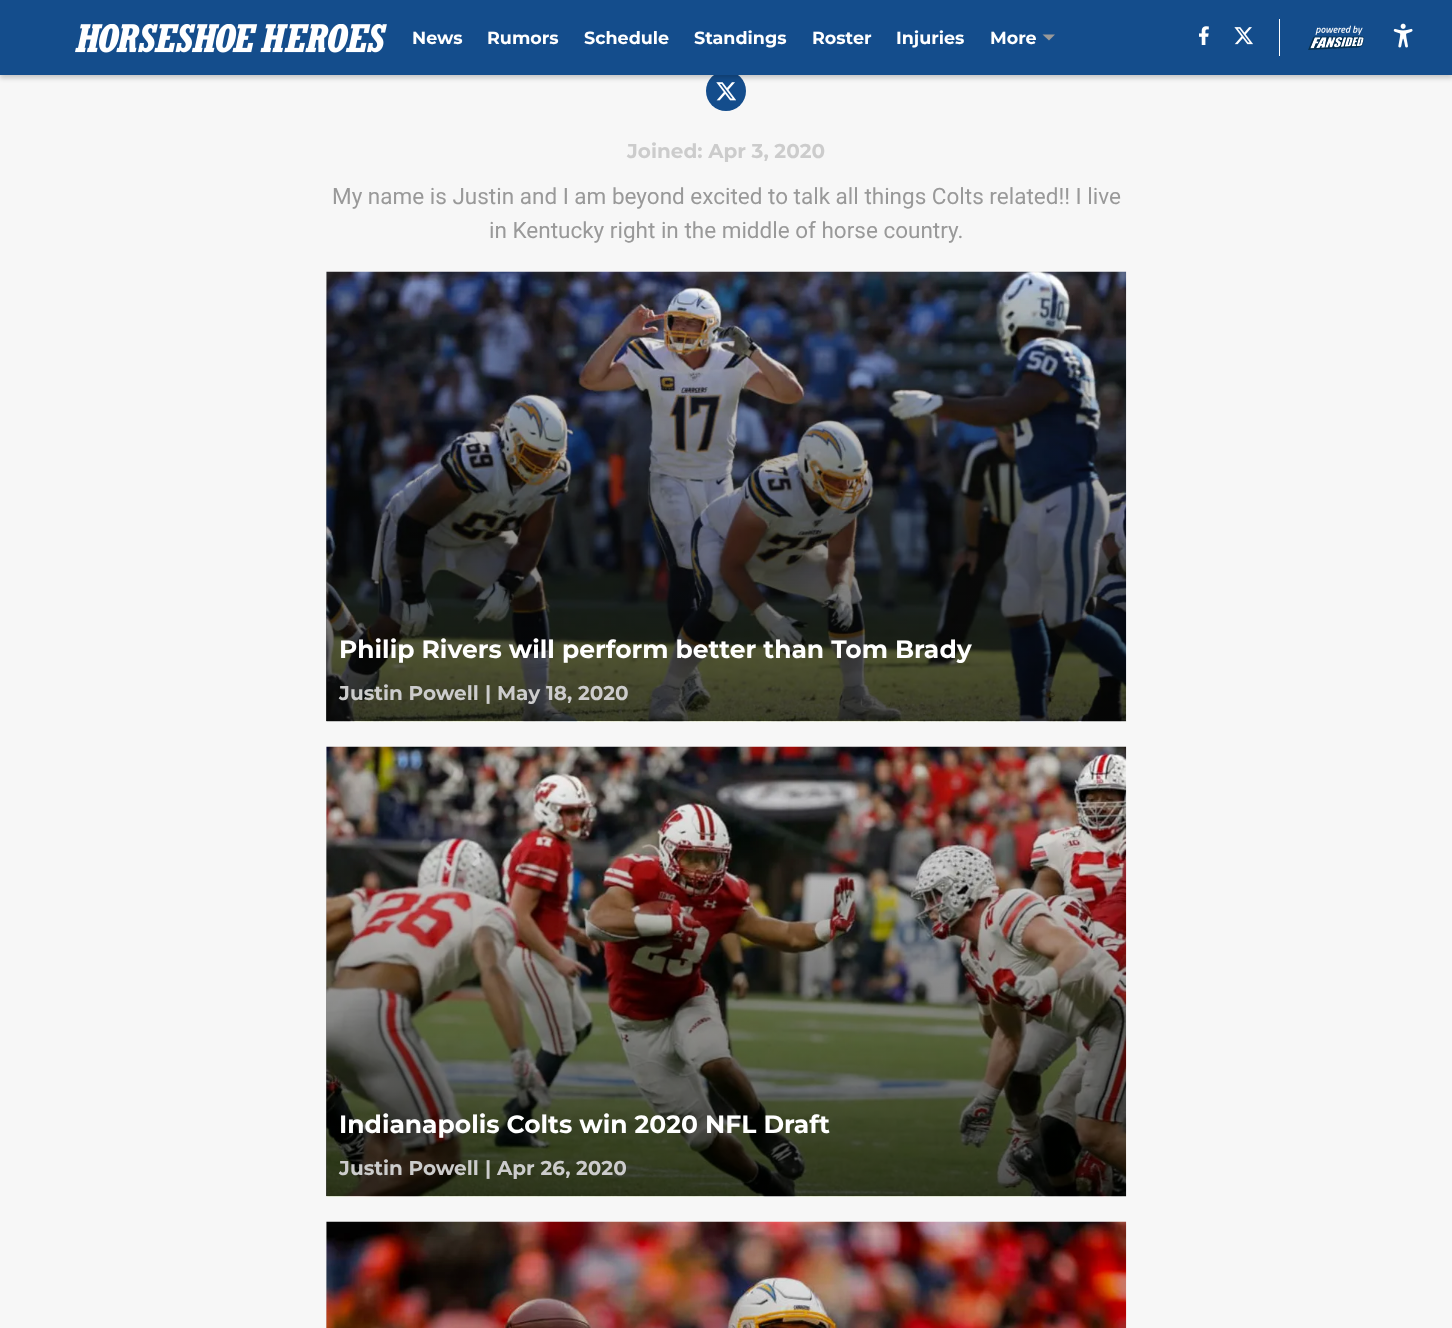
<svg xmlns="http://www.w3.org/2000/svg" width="1452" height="1328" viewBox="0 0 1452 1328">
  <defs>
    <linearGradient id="g1" gradientUnits="userSpaceOnUse" x1="726" y1="721" x2="726" y2="271"><stop offset="0" stop-color="#000" stop-opacity="0.7"/><stop offset="1" stop-color="#000" stop-opacity="0"/></linearGradient>
    <linearGradient id="g2" gradientUnits="userSpaceOnUse" x1="726" y1="1196" x2="726" y2="746"><stop offset="0" stop-color="#000" stop-opacity="0.7"/><stop offset="1" stop-color="#000" stop-opacity="0"/></linearGradient>
    <linearGradient id="g3" gradientUnits="userSpaceOnUse" x1="726" y1="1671" x2="726" y2="1221"><stop offset="0" stop-color="#000" stop-opacity="0.7"/><stop offset="1" stop-color="#000" stop-opacity="0"/></linearGradient>
  </defs>
  <rect width="100%" height="100%" fill="#f7f7f7"/>
  <circle cx="726" cy="91" r="20" fill="#144d8c"/>
  <image x="716" y="82" width="20" height="19" href="img/6.png"/>
  <path d="M0 3h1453v75H0z" fill="#00000033" filter="blur(2.5px)"/>
  <path d="M0 0h1452v75H0z" fill="#144d8c"/>
  <image x="75" y="24" width="312" height="29" href="img/1.png"/>
  <path d="M1042.5 34.5L1049 40.5L1055 34.5Z" fill="#999" fill-rule="evenodd"/>
  <image x="1199" y="26" width="10" height="19" href="img/2.png"/>
  <image x="1234" y="27" width="19" height="18" href="img/3.png"/>
  <path d="M1279 19h1v37H1279z" fill="#fff"/>
  <image x="1308" y="25" width="57" height="25" href="img/4.png"/>
  <image x="1393" y="23" width="20" height="25" href="img/5.png"/>
  <image x="326" y="271" width="801" height="451" href="img/7.png"/>
  <path d="M326 285h800v436H326z" fill="url(#g1)"/>
  <image x="326" y="746" width="801" height="451" href="img/8.png"/>
  <path d="M326 760h800v436H326z" fill="url(#g2)"/>
  <image x="326" y="1221" width="801" height="107" href="img/9.png"/>
  <path d="M326 1235h800v93H326z" fill="url(#g3)"/>
  <g font-family="Montserrat" font-size="17.5" font-weight="bold" fill="#fff">
    <text x="412" y="44">News</text>
    <text x="487" y="44">Rumors</text>
    <text x="584" y="44">Schedule</text>
    <text x="694" y="44">Standings</text>
    <text x="812" y="44">Roster</text>
    <text x="896" y="44">Injuries</text>
    <text x="990" y="44">More</text>
  </g>
  <text x="627" y="158" font-family="Montserrat" font-size="20" font-weight="bold" fill="#ccc">Joined: Apr 3, 2020</text>
  <g font-family="Roboto" font-size="22.5" fill="#999">
    <text x="332" y="204">My name is Justin and I am beyond excited to talk all things Colts related!! I live</text>
    <text x="489" y="238">in Kentucky right in the middle of horse country.</text>
  </g>
  <text x="339" y="658" font-family="Montserrat" font-size="25" font-weight="bold" fill="#fff">Philip Rivers will perform better than Tom Brady</text>
  <g font-family="Montserrat" font-size="20" font-weight="bold" fill="#ccc">
    <text x="339" y="700">Justin Powell</text>
    <text x="485" y="700">|</text>
    <text x="497" y="700">May 18, 2020</text>
  </g>
  <text x="339" y="1133" font-family="Montserrat" font-size="25" font-weight="bold" fill="#fff">Indianapolis Colts win 2020 NFL Draft</text>
  <g font-family="Montserrat" font-size="20" font-weight="bold" fill="#ccc">
    <text x="339" y="1175">Justin Powell</text>
    <text x="485" y="1175">|</text>
    <text x="497" y="1175">Apr 26, 2020</text>
  </g>
</svg>
